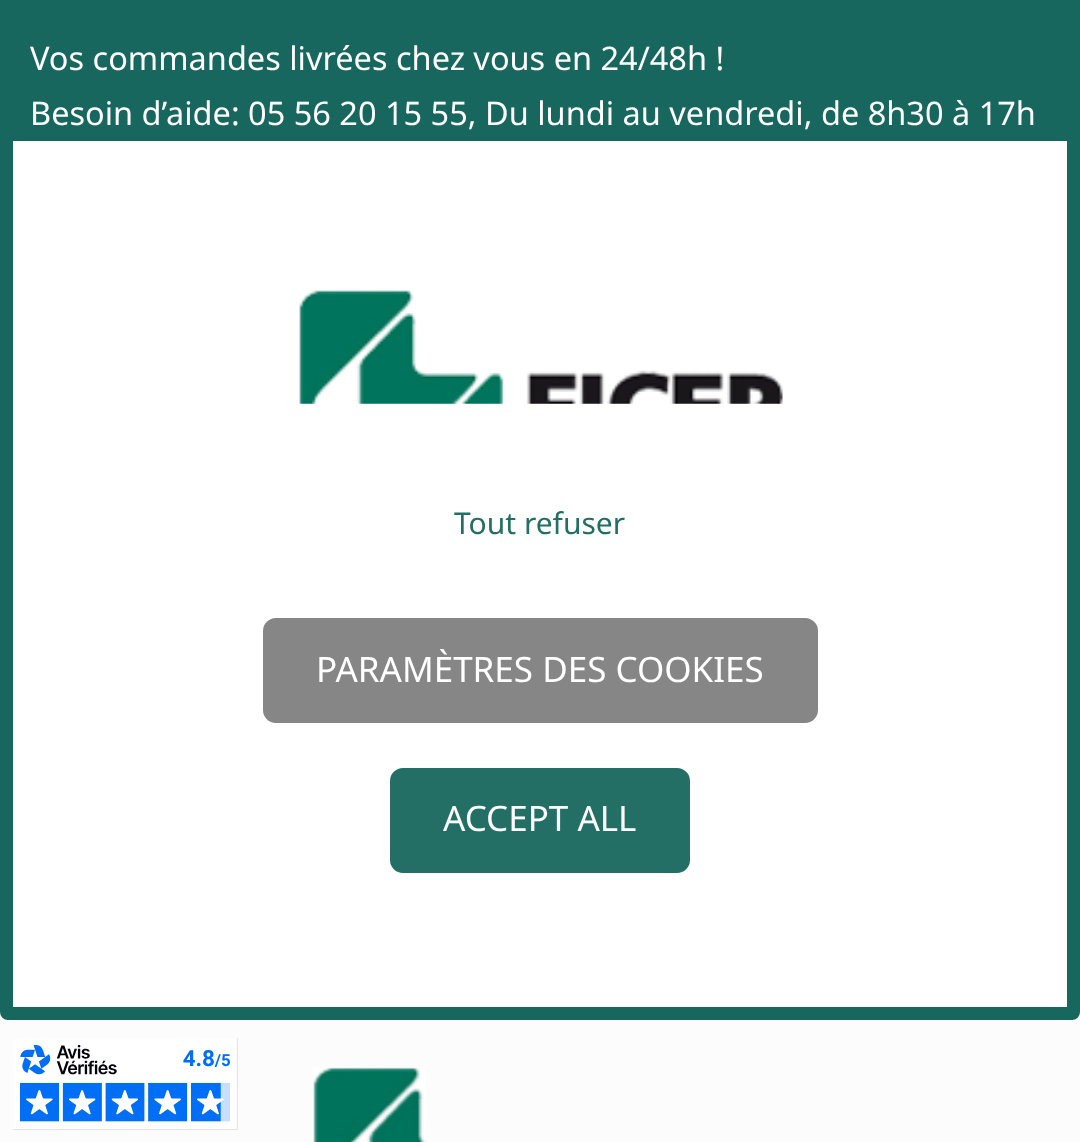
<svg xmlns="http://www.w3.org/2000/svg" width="1080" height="1142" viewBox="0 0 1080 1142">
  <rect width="100%" height="100%" fill="#fcfcfc"/>
  <path d="M0 0h1080v136H0z" fill="#17675e"/>
  <rect x="6.5" y="134.5" width="1067" height="879" rx="1.5" fill="#fff" stroke="#17675e" stroke-width="13"/>
  <image x="299" y="290" width="484" height="114" href="img/1.png"/>
  <rect x="264.5" y="619.5" width="552" height="102" rx="11.5" fill="#868686" stroke="#868686" stroke-width="3"/>
  <rect x="391.5" y="769.5" width="297" height="102" rx="11.5" fill="#236f66" stroke="#236f66" stroke-width="3"/>
  <image x="313" y="1067" width="113" height="75" href="img/2.png"/>
  <image x="13" y="1038" width="225" height="92" href="img/3.png"/>
  <g font-family="Noto Sans" font-size="32.5" fill="#fff">
    <text x="30" y="70">Vos commandes livrées chez vous en 24/48h !</text>
    <text x="30" y="125">Besoin d’aide: 05 56 20 15 55, Du lundi au vendredi, de 8h30 à 17h</text>
  </g>
  <text x="454" y="534" font-family="Noto Sans" font-size="30" fill="#236f66">Tout refuser</text>
  <g font-family="Noto Sans" font-size="35" fill="#fff">
    <text x="316" y="682">PARAMÈTRES DES COOKIES</text>
    <text x="443" y="831">ACCEPT ALL</text>
  </g>
</svg>
